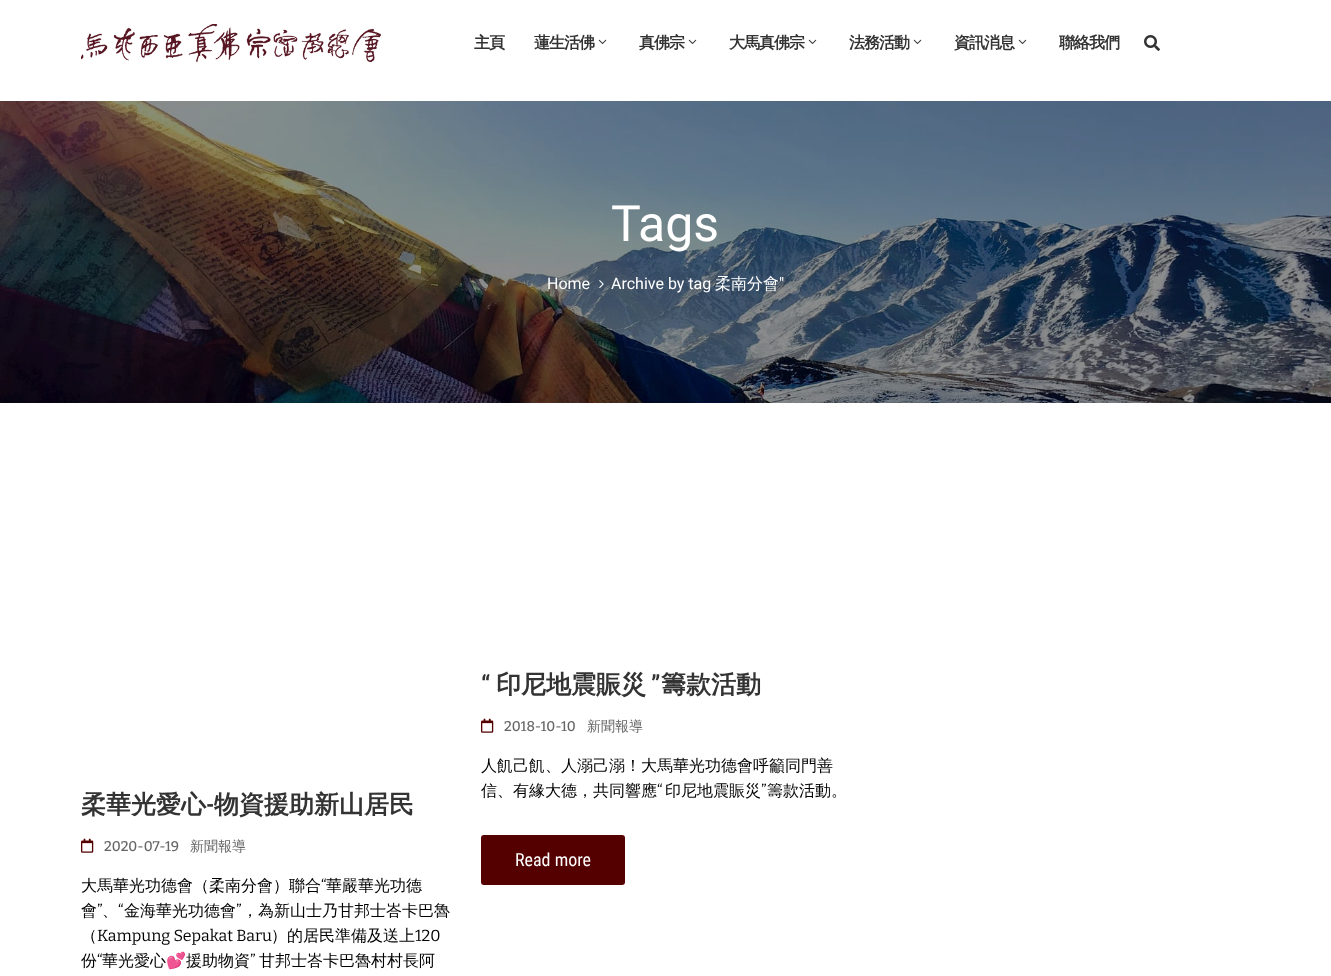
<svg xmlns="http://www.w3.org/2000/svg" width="1331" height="976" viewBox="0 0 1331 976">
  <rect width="100%" height="100%" fill="#fff"/>
  <image x="81" y="24" width="300" height="38" href="img/1.png"/>
  <image x="598" y="39" width="9" height="5" href="img/2.png"/>
  <image x="688" y="39" width="9" height="5" href="img/2.png"/>
  <image x="808" y="39" width="9" height="5" href="img/2.png"/>
  <image x="913" y="39" width="9" height="5" href="img/2.png"/>
  <image x="1018" y="39" width="9" height="5" href="img/2.png"/>
  <image x="1144" y="35" width="16" height="16" href="img/3.png"/>
  <image x="0" y="101" width="1331" height="302" href="img/4.png"/>
  <image x="599" y="280" width="5" height="8" href="img/5.png"/>
  <image x="81" y="838" width="13" height="15" href="img/6.png"/>
  <image x="481" y="718" width="13" height="15" href="img/6.png"/>
  <rect x="481" y="835" width="144" height="50" rx="3" fill="#500"/>
  <g font-family="WenQuanYi Zen Hei" font-size="16" font-weight="bold" letter-spacing="-1" fill="#333">
    <text x="474" y="48">主頁</text>
    <text x="534" y="48">蓮生活佛</text>
    <text x="639" y="48">真佛宗</text>
    <text x="729" y="48">大馬真佛宗</text>
    <text x="849" y="48">法務活動</text>
    <text x="954" y="48">資訊消息</text>
    <text x="1059" y="48">聯絡我們</text>
  </g>
  <text x="611" y="241" font-family="Roboto" font-size="50" fill="#fff">Tags</text>
  <g font-family="Roboto" font-size="16" fill="#fff">
    <text x="547" y="289">Home</text>
    <text x="611" y="289">Archive by tag</text>
  </g>
  <text x="715" y="289" font-family="WenQuanYi Zen Hei" font-size="16" font-weight="500" fill="#fff">柔南分會</text>
  <text x="779" y="289" font-family="Roboto" font-size="16" fill="#fff">"</text>
  <text x="81" y="813" font-family="WenQuanYi Zen Hei" font-size="25" font-weight="bold" fill="#333">柔華光愛心</text>
  <text x="206" y="813" font-family="Roboto Condensed" font-size="25" font-weight="600" fill="#333">-</text>
  <text x="214" y="813" font-family="WenQuanYi Zen Hei" font-size="25" font-weight="bold" fill="#333">物資援助新山居民</text>
  <text x="104" y="851" font-family="Bitter" font-size="14" font-weight="500" fill="#666">2020-07-19</text>
  <text x="190" y="851" font-family="WenQuanYi Zen Hei" font-size="14" font-weight="500" fill="#666">新聞報導</text>
  <text x="81" y="891" font-family="WenQuanYi Zen Hei" font-size="16" font-weight="500" fill="#000">大馬華光功德會（柔南分會）聯合</text>
  <text x="321" y="891" font-family="Bitter" font-size="16" fill="#000">“</text>
  <g font-family="WenQuanYi Zen Hei" font-size="16" font-weight="500" fill="#000">
    <text x="326" y="891">華嚴華光功德</text>
    <text x="81" y="916">會</text>
  </g>
  <g font-family="Bitter" font-size="16" fill="#000">
    <text x="97" y="916">”</text>
    <text x="118" y="916">“</text>
  </g>
  <text x="124" y="916" font-family="WenQuanYi Zen Hei" font-size="16" font-weight="500" fill="#000">金海華光功德會</text>
  <text x="236" y="916" font-family="Bitter" font-size="16" fill="#000">”</text>
  <g font-family="WenQuanYi Zen Hei" font-size="16" font-weight="500" fill="#000">
    <text x="242" y="916">，為新山士乃甘邦士峇卡巴魯</text>
    <text x="102" y="916">、</text>
    <text x="81" y="941">（</text>
  </g>
  <text x="97" y="941" font-family="Bitter" font-size="16" fill="#000">Kampung Sepakat Baru</text>
  <text x="271" y="941" font-family="WenQuanYi Zen Hei" font-size="16" font-weight="500" fill="#000">）的居民準備及送上</text>
  <text x="415" y="941" font-family="Bitter" font-size="16" fill="#000">120</text>
  <text x="81" y="966" font-family="WenQuanYi Zen Hei" font-size="16" font-weight="500" fill="#000">份</text>
  <text x="97" y="966" font-family="Bitter" font-size="16" fill="#000">“</text>
  <text x="102" y="966" font-family="WenQuanYi Zen Hei" font-size="16" font-weight="500" fill="#000">華光愛心</text>
  <text x="166" y="966" font-family="Noto Color Emoji" font-size="16" fill="#000">💕</text>
  <text x="186" y="966" font-family="WenQuanYi Zen Hei" font-size="16" font-weight="500" fill="#000">援助物資</text>
  <text x="250" y="966" font-family="Bitter" font-size="16" fill="#000">”</text>
  <text x="259" y="966" font-family="WenQuanYi Zen Hei" font-size="16" font-weight="500" fill="#000">甘邦士峇卡巴魯村村長阿</text>
  <text x="481" y="693" font-family="Roboto Condensed" font-size="25" font-weight="600" fill="#333">“</text>
  <text x="496" y="693" font-family="WenQuanYi Zen Hei" font-size="25" font-weight="bold" fill="#333">印尼地震賑災</text>
  <text x="651" y="693" font-family="Roboto Condensed" font-size="25" font-weight="600" fill="#333">”</text>
  <text x="661" y="693" font-family="WenQuanYi Zen Hei" font-size="25" font-weight="bold" fill="#333">籌款活動</text>
  <text x="504" y="731" font-family="Bitter" font-size="14" font-weight="500" fill="#666">2018-10-10</text>
  <text x="587" y="731" font-family="WenQuanYi Zen Hei" font-size="14" font-weight="500" fill="#666">新聞報導</text>
  <g font-family="WenQuanYi Zen Hei" font-size="16" font-weight="500" fill="#000">
    <text x="481" y="771">人飢己飢、人溺己溺！大馬華光功德會呼籲同門善</text>
    <text x="481" y="796">信、有緣大德，共同響應</text>
  </g>
  <text x="657" y="796" font-family="Bitter" font-size="16" fill="#000">“</text>
  <text x="665" y="796" font-family="WenQuanYi Zen Hei" font-size="16" font-weight="500" fill="#000">印尼地震賑災</text>
  <text x="761" y="796" font-family="Bitter" font-size="16" fill="#000">”</text>
  <text x="767" y="796" font-family="WenQuanYi Zen Hei" font-size="16" font-weight="500" fill="#000">籌款活動。</text>
  <text x="515" y="866" font-family="Roboto Condensed" font-size="18" fill="#fff">Read more</text>
</svg>
